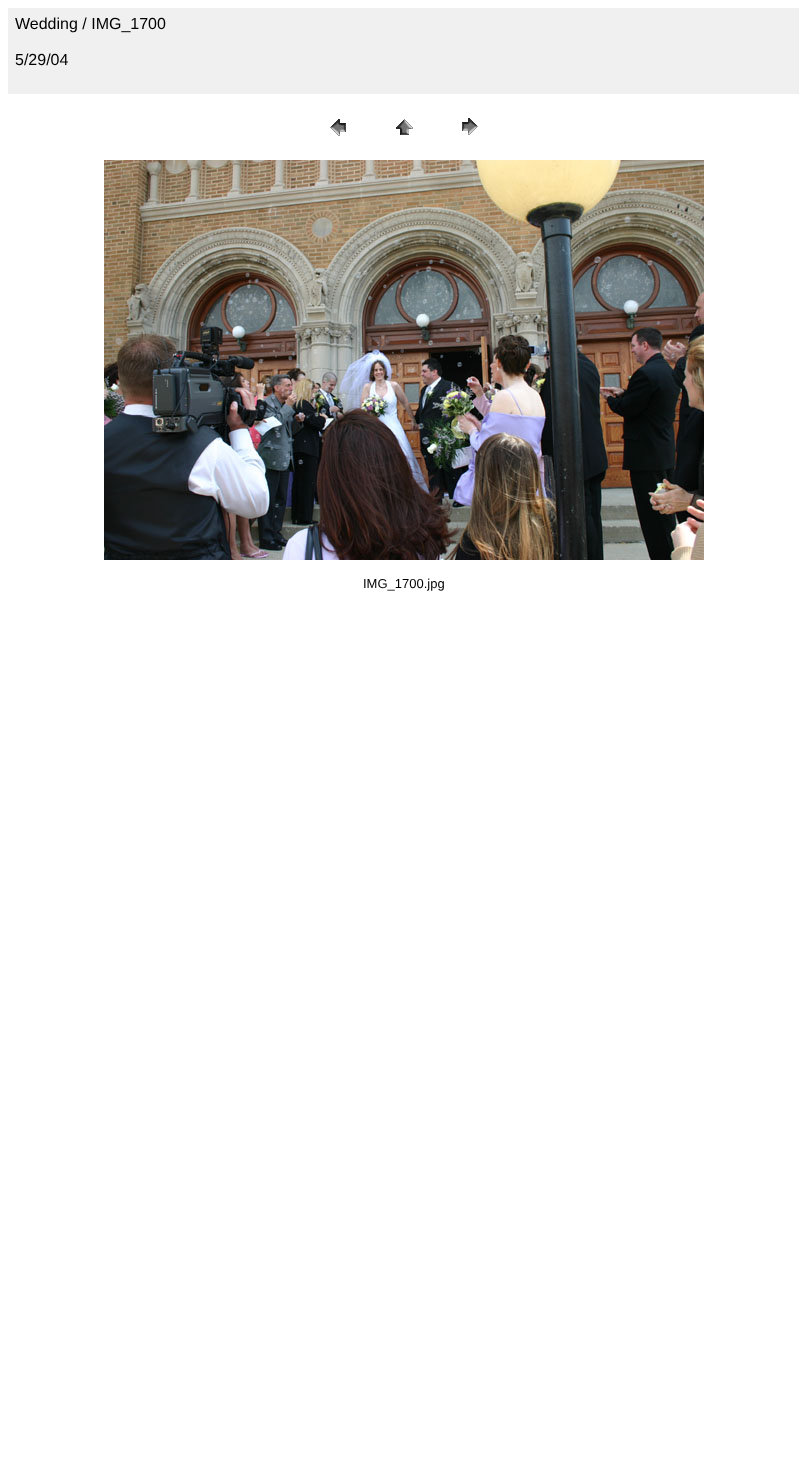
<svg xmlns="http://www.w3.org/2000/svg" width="807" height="1465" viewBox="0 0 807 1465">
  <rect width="100%" height="100%" fill="#fff"/>
  <path d="M8 8h791v86H8z" fill="#f0f0f0"/>
  <image x="330" y="119" width="16" height="17" href="img/1.png"/>
  <image x="396" y="119" width="17" height="16" href="img/2.png"/>
  <image x="462" y="118" width="16" height="17" href="img/3.png"/>
  <image x="104" y="160" width="600" height="400" href="img/4.png"/>
  <g font-family="Liberation Sans" font-size="16" fill="#000">
    <text x="15" y="29">Wedding / IMG_1700</text>
    <text x="15" y="65">5/29/04</text>
  </g>
  <text x="363" y="588" font-family="Liberation Sans" font-size="13" fill="#000">IMG_1700.jpg</text>
</svg>
